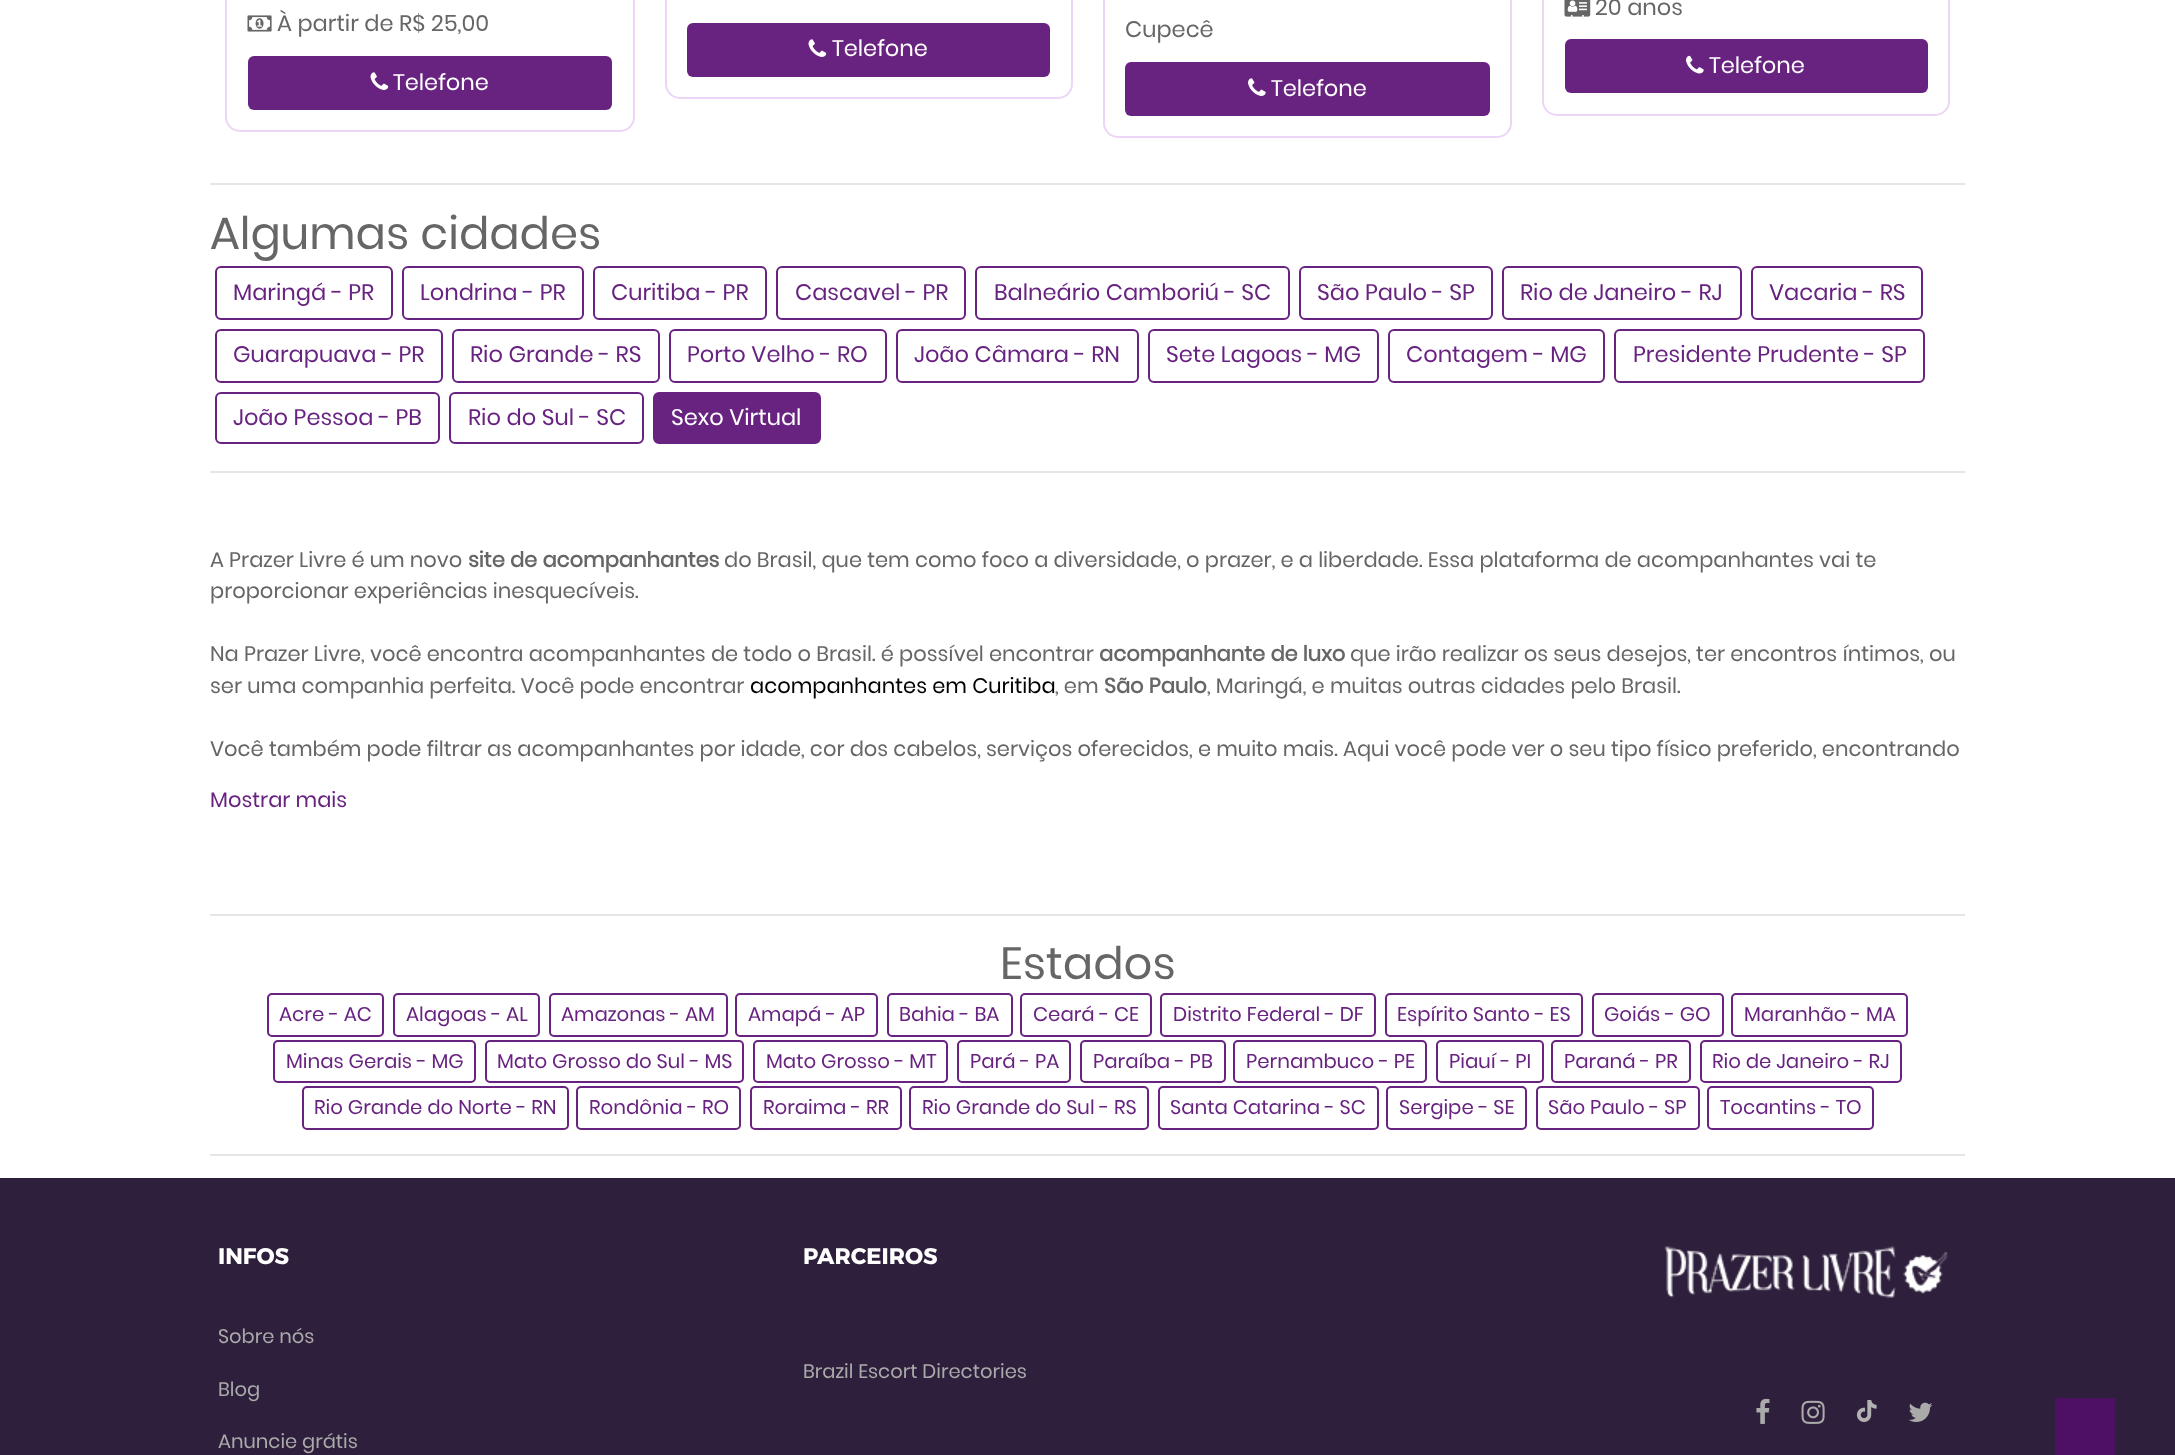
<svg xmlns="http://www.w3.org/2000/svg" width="2175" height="1455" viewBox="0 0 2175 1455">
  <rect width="100%" height="100%" fill="#fff"/>
  <rect x="226" y="-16" width="408" height="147" rx="14" fill="none" stroke="#edd5f7" stroke-width="2"/>
  <image x="247" y="15" width="25" height="17" href="img/1.png"/>
  <rect x="248" y="56" width="364" height="54" rx="6" fill="#682381"/>
  <image x="370" y="72" width="19" height="18" href="img/2.png"/>
  <rect x="666" y="-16" width="406" height="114" rx="14" fill="none" stroke="#edd5f7" stroke-width="2"/>
  <rect x="687" y="23" width="363" height="54" rx="6" fill="#682381"/>
  <image x="808" y="39" width="19" height="18" href="img/2.png"/>
  <rect x="1104" y="-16" width="407" height="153" rx="14" fill="none" stroke="#edd5f7" stroke-width="2"/>
  <rect x="1125" y="62" width="365" height="54" rx="6" fill="#682381"/>
  <image x="1248" y="78" width="18" height="18" href="img/3.png"/>
  <rect x="1543" y="-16" width="406" height="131" rx="14" fill="none" stroke="#edd5f7" stroke-width="2"/>
  <image x="1564" y="0" width="27" height="17" href="img/4.png"/>
  <rect x="1565" y="39" width="363" height="54" rx="6" fill="#682381"/>
  <image x="1686" y="55" width="18" height="19" href="img/5.png"/>
  <path d="M210 183h1755v2H210z" fill="#e6e6e6"/>
  <rect x="216" y="267" width="176" height="52" rx="5" fill="none" stroke="#682381" stroke-width="2"/>
  <rect x="403" y="267" width="180" height="52" rx="5" fill="none" stroke="#682381" stroke-width="2"/>
  <rect x="594" y="267" width="172" height="52" rx="5" fill="none" stroke="#682381" stroke-width="2"/>
  <rect x="777" y="267" width="188" height="52" rx="5" fill="none" stroke="#682381" stroke-width="2"/>
  <rect x="976" y="267" width="313" height="52" rx="5" fill="none" stroke="#682381" stroke-width="2"/>
  <rect x="1300" y="267" width="192" height="52" rx="5" fill="none" stroke="#682381" stroke-width="2"/>
  <rect x="1503" y="267" width="238" height="52" rx="5" fill="none" stroke="#682381" stroke-width="2"/>
  <rect x="1752" y="267" width="170" height="52" rx="5" fill="none" stroke="#682381" stroke-width="2"/>
  <rect x="216" y="330" width="226" height="52" rx="5" fill="none" stroke="#682381" stroke-width="2"/>
  <rect x="453" y="330" width="206" height="52" rx="5" fill="none" stroke="#682381" stroke-width="2"/>
  <rect x="670" y="330" width="216" height="52" rx="5" fill="none" stroke="#682381" stroke-width="2"/>
  <rect x="897" y="330" width="241" height="52" rx="5" fill="none" stroke="#682381" stroke-width="2"/>
  <rect x="1149" y="330" width="229" height="52" rx="5" fill="none" stroke="#682381" stroke-width="2"/>
  <rect x="1389" y="330" width="215" height="52" rx="5" fill="none" stroke="#682381" stroke-width="2"/>
  <rect x="1615" y="330" width="309" height="52" rx="5" fill="none" stroke="#682381" stroke-width="2"/>
  <rect x="216" y="393" width="223" height="50" rx="5" fill="none" stroke="#682381" stroke-width="2"/>
  <rect x="450" y="393" width="193" height="50" rx="5" fill="none" stroke="#682381" stroke-width="2"/>
  <rect x="654" y="393" width="166" height="50" rx="5" fill="#682381" stroke="#682381" stroke-width="2"/>
  <path d="M210 471h1755v2H210z" fill="#e6e6e6"/>
  <path d="M210 914h1755v2H210z" fill="#e6e6e6"/>
  <rect x="268" y="994" width="115" height="42" rx="4" fill="none" stroke="#682381" stroke-width="2"/>
  <rect x="394" y="994" width="145" height="42" rx="4" fill="none" stroke="#682381" stroke-width="2"/>
  <rect x="550" y="994" width="177" height="42" rx="4" fill="none" stroke="#682381" stroke-width="2"/>
  <rect x="736" y="994" width="141" height="42" rx="4" fill="none" stroke="#682381" stroke-width="2"/>
  <rect x="888" y="994" width="124" height="42" rx="4" fill="none" stroke="#682381" stroke-width="2"/>
  <rect x="1021" y="994" width="130" height="42" rx="4" fill="none" stroke="#682381" stroke-width="2"/>
  <rect x="1161" y="994" width="214" height="42" rx="4" fill="none" stroke="#682381" stroke-width="2"/>
  <rect x="1386" y="994" width="196" height="42" rx="4" fill="none" stroke="#682381" stroke-width="2"/>
  <rect x="1593" y="994" width="130" height="42" rx="4" fill="none" stroke="#682381" stroke-width="2"/>
  <rect x="1732" y="994" width="175" height="42" rx="4" fill="none" stroke="#682381" stroke-width="2"/>
  <rect x="274" y="1041" width="201" height="41" rx="4" fill="none" stroke="#682381" stroke-width="2"/>
  <rect x="486" y="1041" width="257" height="41" rx="4" fill="none" stroke="#682381" stroke-width="2"/>
  <rect x="754" y="1041" width="193" height="41" rx="4" fill="none" stroke="#682381" stroke-width="2"/>
  <rect x="958" y="1041" width="112" height="41" rx="4" fill="none" stroke="#682381" stroke-width="2"/>
  <rect x="1081" y="1041" width="144" height="41" rx="4" fill="none" stroke="#682381" stroke-width="2"/>
  <rect x="1234" y="1041" width="192" height="41" rx="4" fill="none" stroke="#682381" stroke-width="2"/>
  <rect x="1437" y="1041" width="106" height="41" rx="4" fill="none" stroke="#682381" stroke-width="2"/>
  <rect x="1552" y="1041" width="138" height="41" rx="4" fill="none" stroke="#682381" stroke-width="2"/>
  <rect x="1701" y="1041" width="200" height="41" rx="4" fill="none" stroke="#682381" stroke-width="2"/>
  <rect x="303" y="1087" width="265" height="42" rx="4" fill="none" stroke="#682381" stroke-width="2"/>
  <rect x="577" y="1087" width="163" height="42" rx="4" fill="none" stroke="#682381" stroke-width="2"/>
  <rect x="751" y="1087" width="150" height="42" rx="4" fill="none" stroke="#682381" stroke-width="2"/>
  <rect x="910" y="1087" width="238" height="42" rx="4" fill="none" stroke="#682381" stroke-width="2"/>
  <rect x="1159" y="1087" width="219" height="42" rx="4" fill="none" stroke="#682381" stroke-width="2"/>
  <rect x="1387" y="1087" width="139" height="42" rx="4" fill="none" stroke="#682381" stroke-width="2"/>
  <rect x="1537" y="1087" width="162" height="42" rx="4" fill="none" stroke="#682381" stroke-width="2"/>
  <rect x="1708" y="1087" width="165" height="42" rx="4" fill="none" stroke="#682381" stroke-width="2"/>
  <path d="M210 1154h1755v2H210z" fill="#e6e6e6"/>
  <path d="M0 1178h2175v277H0z" fill="#2e1f3c"/>
  <image x="1664" y="1246" width="284" height="52" href="img/6.png"/>
  <image x="1756" y="1398" width="14" height="26" href="img/7.png"/>
  <image x="1801" y="1400" width="24" height="24" href="img/8.png"/>
  <image x="1856" y="1400" width="21" height="22" href="img/9.png"/>
  <image x="1908" y="1402" width="25" height="20" href="img/10.png"/>
  <path d="M2055 1398h60v57H2055z" fill="#4e1063"/>
  <text x="277" y="31" font-family="Poppins" font-size="22.5" fill="#666">À partir de R$ 25,00</text>
  <g font-family="Poppins" font-size="22.5" fill="#fff">
    <text x="393" y="90">Telefone</text>
    <text x="832" y="56">Telefone</text>
  </g>
  <text x="1125" y="37" font-family="Poppins" font-size="22.5" fill="#666">Cupecê</text>
  <text x="1271" y="96" font-family="Poppins" font-size="22.5" fill="#fff">Telefone</text>
  <text x="1595" y="15" font-family="Poppins" font-size="22.5" fill="#666">20 anos</text>
  <text x="1709" y="73" font-family="Poppins" font-size="22.5" fill="#fff">Telefone</text>
  <text x="210" y="249" font-family="Poppins" font-size="45" fill="#666">Algumas cidades</text>
  <g font-family="Poppins" font-size="22.5" fill="#682381">
    <text x="233" y="300">Maringá - PR</text>
    <text x="420" y="300">Londrina - PR</text>
    <text x="611" y="300">Curitiba - PR</text>
    <text x="795" y="300">Cascavel - PR</text>
    <text x="994" y="300">Balneário Camboriú - SC</text>
    <text x="1317" y="300">São Paulo - SP</text>
    <text x="1520" y="300">Rio de Janeiro - RJ</text>
    <text x="1769" y="300">Vacaria - RS</text>
    <text x="233" y="362">Guarapuava - PR</text>
    <text x="470" y="362">Rio Grande - RS</text>
    <text x="687" y="362">Porto Velho - RO</text>
    <text x="914" y="362">João Câmara - RN</text>
    <text x="1166" y="362">Sete Lagoas - MG</text>
    <text x="1406" y="362">Contagem - MG</text>
    <text x="1633" y="362">Presidente Prudente - SP</text>
    <text x="233" y="425">João Pessoa - PB</text>
    <text x="468" y="425">Rio do Sul - SC</text>
  </g>
  <text x="671" y="425" font-family="Poppins" font-size="22.5" fill="#fff">Sexo Virtual</text>
  <text x="210" y="567" font-family="Poppins" font-size="21" fill="#666">A Prazer Livre é um novo</text>
  <text x="468" y="567" font-family="Poppins" font-size="21" font-weight="bold" fill="#666">site de acompanhantes</text>
  <g font-family="Poppins" font-size="21" fill="#666">
    <text x="724" y="567">do Brasil, que tem como foco a diversidade, o prazer, e a liberdade. Essa plataforma de acompanhantes vai te</text>
    <text x="210" y="598">proporcionar experiências inesquecíveis.</text>
    <text x="210" y="661">Na Prazer Livre, você encontra acompanhantes de todo o Brasil. é possível encontrar</text>
  </g>
  <text x="1099" y="661" font-family="Poppins" font-size="21" font-weight="bold" fill="#666">acompanhante de luxo</text>
  <g font-family="Poppins" font-size="21" fill="#666">
    <text x="1350" y="661">que irão realizar os seus desejos, ter encontros íntimos, ou</text>
    <text x="210" y="693">ser uma companhia perfeita. Você pode encontrar</text>
  </g>
  <text x="750" y="693" font-family="Poppins" font-size="21" fill="#000">acompanhantes em Curitiba</text>
  <text x="1055" y="693" font-family="Poppins" font-size="21" fill="#666">, em</text>
  <text x="1104" y="693" font-family="Poppins" font-size="21" font-weight="bold" fill="#666">São Paulo</text>
  <g font-family="Poppins" font-size="21" fill="#666">
    <text x="1207" y="693">, Maringá, e muitas outras cidades pelo Brasil.</text>
    <text x="210" y="756">Você também pode filtrar as acompanhantes por idade, cor dos cabelos, serviços oferecidos, e muito mais. Aqui você pode ver o seu tipo físico preferido, encontrando</text>
  </g>
  <text x="210" y="807" font-family="Poppins" font-size="21" fill="#682381">Mostrar mais</text>
  <text x="1000" y="979" font-family="Poppins" font-size="45" fill="#666">Estados</text>
  <g font-family="Poppins" font-size="19.75" fill="#682381">
    <text x="279" y="1021">Acre - AC</text>
    <text x="406" y="1021">Alagoas - AL</text>
    <text x="561" y="1021">Amazonas - AM</text>
    <text x="748" y="1021">Amapá - AP</text>
    <text x="899" y="1021">Bahia - BA</text>
    <text x="1033" y="1021">Ceará - CE</text>
    <text x="1173" y="1021">Distrito Federal - DF</text>
    <text x="1397" y="1021">Espírito Santo - ES</text>
    <text x="1604" y="1021">Goiás - GO</text>
    <text x="1744" y="1021">Maranhão - MA</text>
    <text x="286" y="1068">Minas Gerais - MG</text>
    <text x="497" y="1068">Mato Grosso do Sul - MS</text>
    <text x="766" y="1068">Mato Grosso - MT</text>
    <text x="970" y="1068">Pará - PA</text>
    <text x="1093" y="1068">Paraíba - PB</text>
    <text x="1246" y="1068">Pernambuco - PE</text>
    <text x="1449" y="1068">Piauí - PI</text>
    <text x="1564" y="1068">Paraná - PR</text>
    <text x="1712" y="1068">Rio de Janeiro - RJ</text>
    <text x="314" y="1114">Rio Grande do Norte - RN</text>
    <text x="589" y="1114">Rondônia - RO</text>
    <text x="763" y="1114">Roraima - RR</text>
    <text x="922" y="1114">Rio Grande do Sul - RS</text>
    <text x="1170" y="1114">Santa Catarina - SC</text>
    <text x="1399" y="1114">Sergipe - SE</text>
    <text x="1548" y="1114">São Paulo - SP</text>
    <text x="1720" y="1114">Tocantins - TO</text>
  </g>
  <text x="218" y="1264" font-family="Montserrat" font-size="22.5" font-weight="bold" fill="#fff">INFOS</text>
  <g font-family="Poppins" font-size="19.5" fill="#aaa">
    <text x="218" y="1343">Sobre nós</text>
    <text x="218" y="1396">Blog</text>
    <text x="218" y="1448">Anuncie grátis</text>
  </g>
  <text x="803" y="1264" font-family="Montserrat" font-size="22.5" font-weight="bold" fill="#fff">PARCEIROS</text>
  <text x="803" y="1378" font-family="Poppins" font-size="19.5" fill="#aaa">Brazil Escort Directories</text>
</svg>
